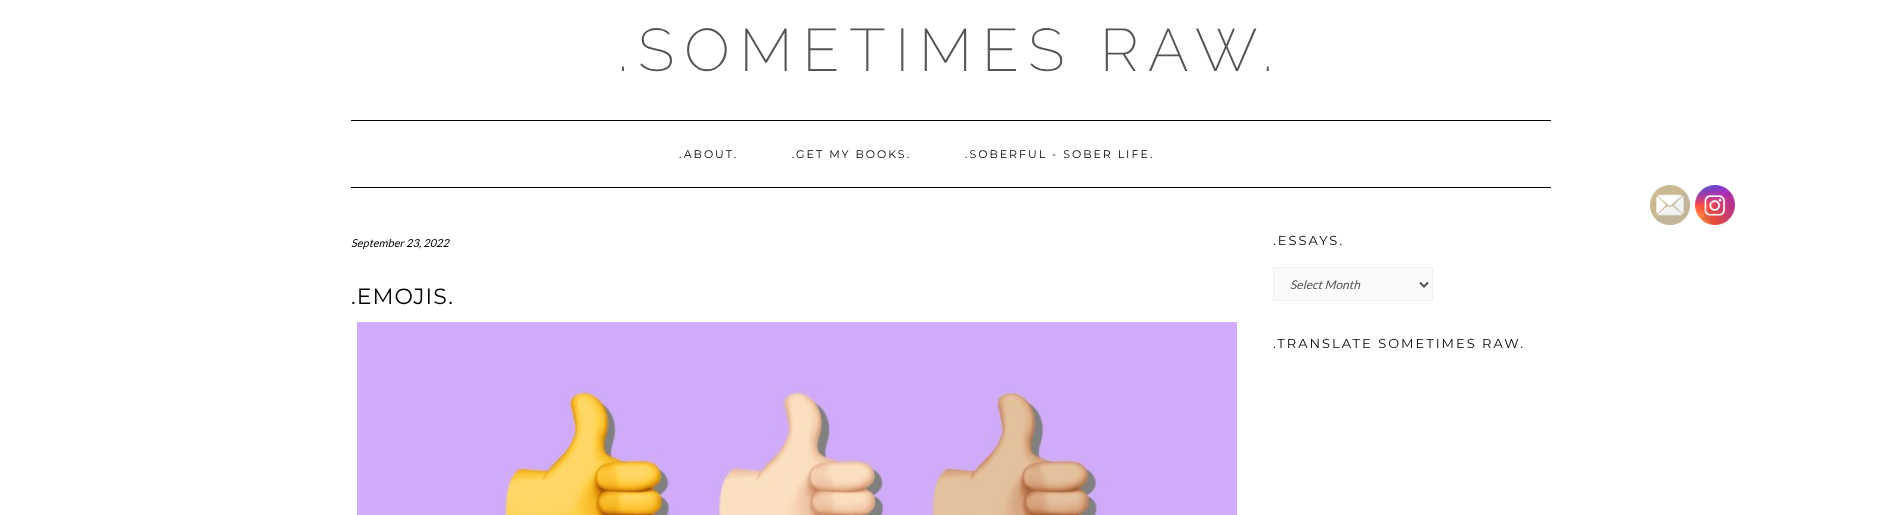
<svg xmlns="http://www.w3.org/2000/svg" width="1901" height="515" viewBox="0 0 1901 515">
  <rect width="100%" height="100%" fill="#fff"/>
  <path d="M351 120h1200v1H351z" fill="#000"/>
  <path d="M351 187h1200v1H351z" fill="#000"/>
  <image x="357" y="322" width="880" height="193" href="img/1.png"/>
  <path d="M1273.5 267.5h159v33H1273.5z" fill="#fafafa" stroke="#f1f1f1"/>
  <path d="M1420 282.5L1424 286.5L1428 282.5" fill="none" stroke="#545454" stroke-width="2"/>
  <image x="1650" y="185" width="40" height="40" href="img/2.png"/>
  <image x="1695" y="185" width="40" height="40" href="img/3.png"/>
  <text x="618" y="71" font-family="Raleway" font-size="60" font-weight="100" letter-spacing="10" fill="#545454">.SOMETIMES RAW.</text>
  <g font-family="Montserrat" font-size="11" font-weight="100" letter-spacing="2" fill="#000">
    <text x="679" y="158">.ABOUT.</text>
    <text x="792" y="158">.GET MY BOOKS.</text>
    <text x="965" y="158">.SOBERFUL - SOBER LIFE.</text>
  </g>
  <text x="351" y="247" font-family="Lato" font-size="11" font-style="italic" fill="#000">September 23, 2022</text>
  <text x="351" y="304" font-family="Montserrat" font-size="22" font-weight="100" letter-spacing="1" fill="#000">.EMOJIS.</text>
  <text x="1273" y="245" font-family="Montserrat" font-size="13" font-weight="100" letter-spacing="2" fill="#000">.ESSAYS.</text>
  <text x="1290" y="289" font-family="Lato" font-size="12" font-style="italic" fill="#545454">Select Month</text>
  <text x="1273" y="348" font-family="Montserrat" font-size="13" font-weight="100" letter-spacing="2" fill="#000">.TRANSLATE SOMETIMES RAW.</text>
</svg>
